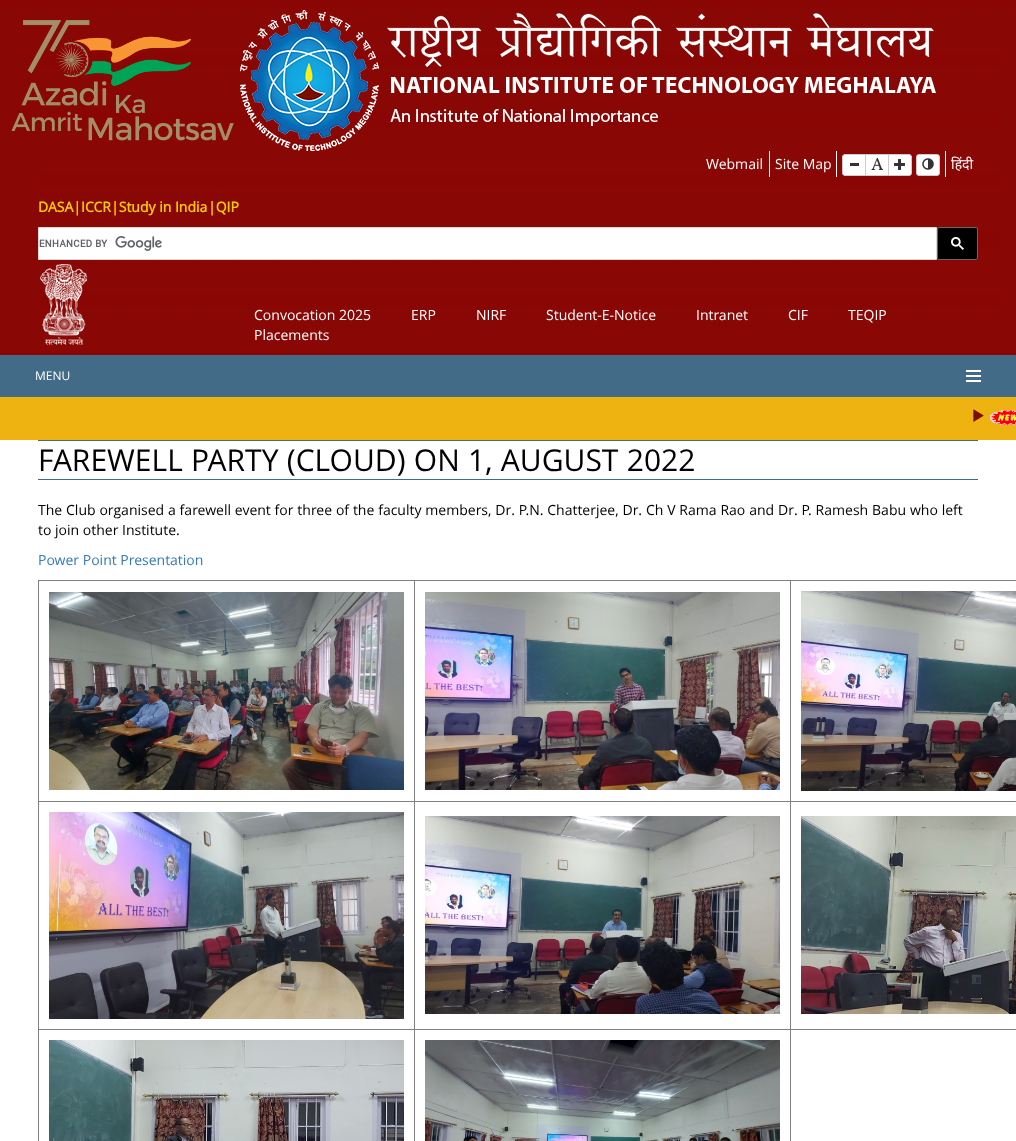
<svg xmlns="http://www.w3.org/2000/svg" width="1016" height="1141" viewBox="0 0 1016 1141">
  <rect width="100%" height="100%" fill="#fff"/>
  <image x="0" y="8" width="1016" height="343" href="img/1.png"/>
  <path d="M0 0h1016v8H0z" fill="#8a0604"/>
  <path d="M39 51h961v17H39z" fill="#8a0604"/>
  <path d="M39 111h961v17H39z" fill="#8a0604"/>
  <path d="M39 171h961v17H39z" fill="#8a0604"/>
  <path d="M39 231h961v17H39z" fill="#8a0604"/>
  <path d="M39 291h961v17H39z" fill="#8a0604"/>
  <path d="M0 351h1016v4H0z" fill="#8a0604"/>
  <image x="11" y="20" width="223" height="121" href="img/2.png"/>
  <image x="240" y="10" width="696" height="141" href="img/3.png"/>
  <path d="M769 151h1v26H769z" fill="#fff"/>
  <path d="M836 151h1v26H836z" fill="#fff"/>
  <path d="M845 154.5H865.5V175.5H845C843.5 175.5 842.5 174.5 842.5 173V157C842.5 155.5 843.5 154.5 845 154.5Z" fill="#fff" stroke="#ccc"/>
  <path d="M850 163h9v3H850z" fill="#333"/>
  <path d="M865.5 154.5h23v21H865.5z" fill="#fff" stroke="#ccc"/>
  <image x="871" y="158" width="12" height="12" href="img/4.png"/>
  <path d="M888.5 154.5H909C910.5 154.5 911.5 155.5 911.5 157V173C911.5 174.5 910.5 175.5 909 175.5H888.5Z" fill="#fff" stroke="#ccc"/>
  <image x="894" y="159" width="11" height="11" href="img/5.png"/>
  <rect x="916.5" y="154.5" width="23" height="21" rx="2.5" fill="#fff" stroke="#ccc"/>
  <image x="922" y="158" width="12" height="12" href="img/6.png"/>
  <path d="M945 151h1v26H945z" fill="#fff"/>
  <path d="M38.5 227.5h898v32H38.5z" fill="#fff" stroke="#d9d9d9"/>
  <image x="39" y="236" width="123" height="15" href="img/7.png"/>
  <rect x="937.5" y="227.5" width="40" height="32" rx="1.5" fill="#000" stroke="#666"/>
  <image x="951" y="237" width="13" height="13" href="img/8.png"/>
  <image x="40" y="264" width="47" height="81" href="img/9.png"/>
  <path d="M0 355h1016v42H0z" fill="#426b87"/>
  <path d="M966 370h15v2H966z" fill="#fff"/>
  <path d="M966 375h15v2H966z" fill="#fff"/>
  <path d="M966 380h15v2H966z" fill="#fff"/>
  <path d="M0 397h1016v43H0z" fill="#eeb211"/>
  <image x="973" y="409" width="11" height="13" href="img/10.png"/>
  <image x="990" y="410" width="26" height="15" href="img/11.png"/>
  <path d="M38 440h940v1H38z" fill="#416a86"/>
  <path d="M38 479h940v1H38z" fill="#416a86"/>
  <path d="M38 580h978v1H38z" fill="#808080"/>
  <path d="M38 580h1v561H38z" fill="#808080"/>
  <image x="49" y="592" width="355" height="198" href="img/12.png"/>
  <path d="M790 801h226v1H790z" fill="#808080"/>
  <path d="M414 1029h377v1H414z" fill="#808080"/>
  <path d="M790 1029h1v112H790z" fill="#808080"/>
  <path d="M790 1029h226v1H790z" fill="#808080"/>
  <path d="M790 801h1v229H790z" fill="#808080"/>
  <path d="M414 801h377v1H414z" fill="#808080"/>
  <path d="M414 1029h1v112H414z" fill="#808080"/>
  <path d="M38 1029h377v1H38z" fill="#808080"/>
  <path d="M414 801h1v229H414z" fill="#808080"/>
  <path d="M38 801h377v1H38z" fill="#808080"/>
  <path d="M414 580h1v222H414z" fill="#808080"/>
  <image x="425" y="592" width="355" height="198" href="img/13.png"/>
  <path d="M790 580h1v222H790z" fill="#808080"/>
  <image x="801" y="591" width="215" height="200" href="img/14.png"/>
  <image x="49" y="812" width="355" height="207" href="img/15.png"/>
  <image x="425" y="816" width="355" height="198" href="img/16.png"/>
  <image x="801" y="816" width="215" height="198" href="img/17.png"/>
  <image x="49" y="1040" width="355" height="101" href="img/18.png"/>
  <image x="425" y="1040" width="355" height="101" href="img/19.png"/>
  <g font-family="Open Sans" font-size="14" fill="#fff">
    <text x="706" y="169">Webmail</text>
    <text x="775" y="169">Site Map</text>
  </g>
  <text x="951" y="169" font-family="Noto Sans" font-size="14" fill="#fff">हिंदी</text>
  <g font-family="Open Sans" font-size="14" font-weight="bold" fill="#fc0">
    <text x="38" y="212">DASA|ICCR|Study in India</text>
    <text x="208" y="212">|QIP</text>
  </g>
  <g font-family="Open Sans" font-size="14" fill="#fff">
    <text x="254" y="320">Convocation 2025</text>
    <text x="411" y="320">ERP</text>
    <text x="476" y="320">NIRF</text>
    <text x="546" y="320">Student-E-Notice</text>
    <text x="696" y="320">Intranet</text>
    <text x="788" y="320">CIF</text>
    <text x="848" y="320">TEQIP</text>
    <text x="254" y="340">Placements</text>
  </g>
  <text x="35" y="380" font-family="'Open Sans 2'" font-size="12" fill="#fff">MENU</text>
  <text x="38" y="471" word-spacing="0.5" font-family="Open Sans" font-size="30" fill="#000">FAREWELL PARTY (CLOUD) ON 1, AUGUST 2022</text>
  <g font-family="Open Sans" font-size="14" fill="#000">
    <text x="38" y="515" word-spacing="0.2">The Club organised a farewell event for three of the faculty members, Dr. P.N. Chatterjee, Dr. Ch V Rama Rao and Dr. P. Ramesh Babu who left</text>
    <text x="38" y="535">to join other Institute.</text>
  </g>
  <text x="38" y="565" font-family="Open Sans" font-size="14" fill="#337ab7">Power Point Presentation</text>
</svg>
